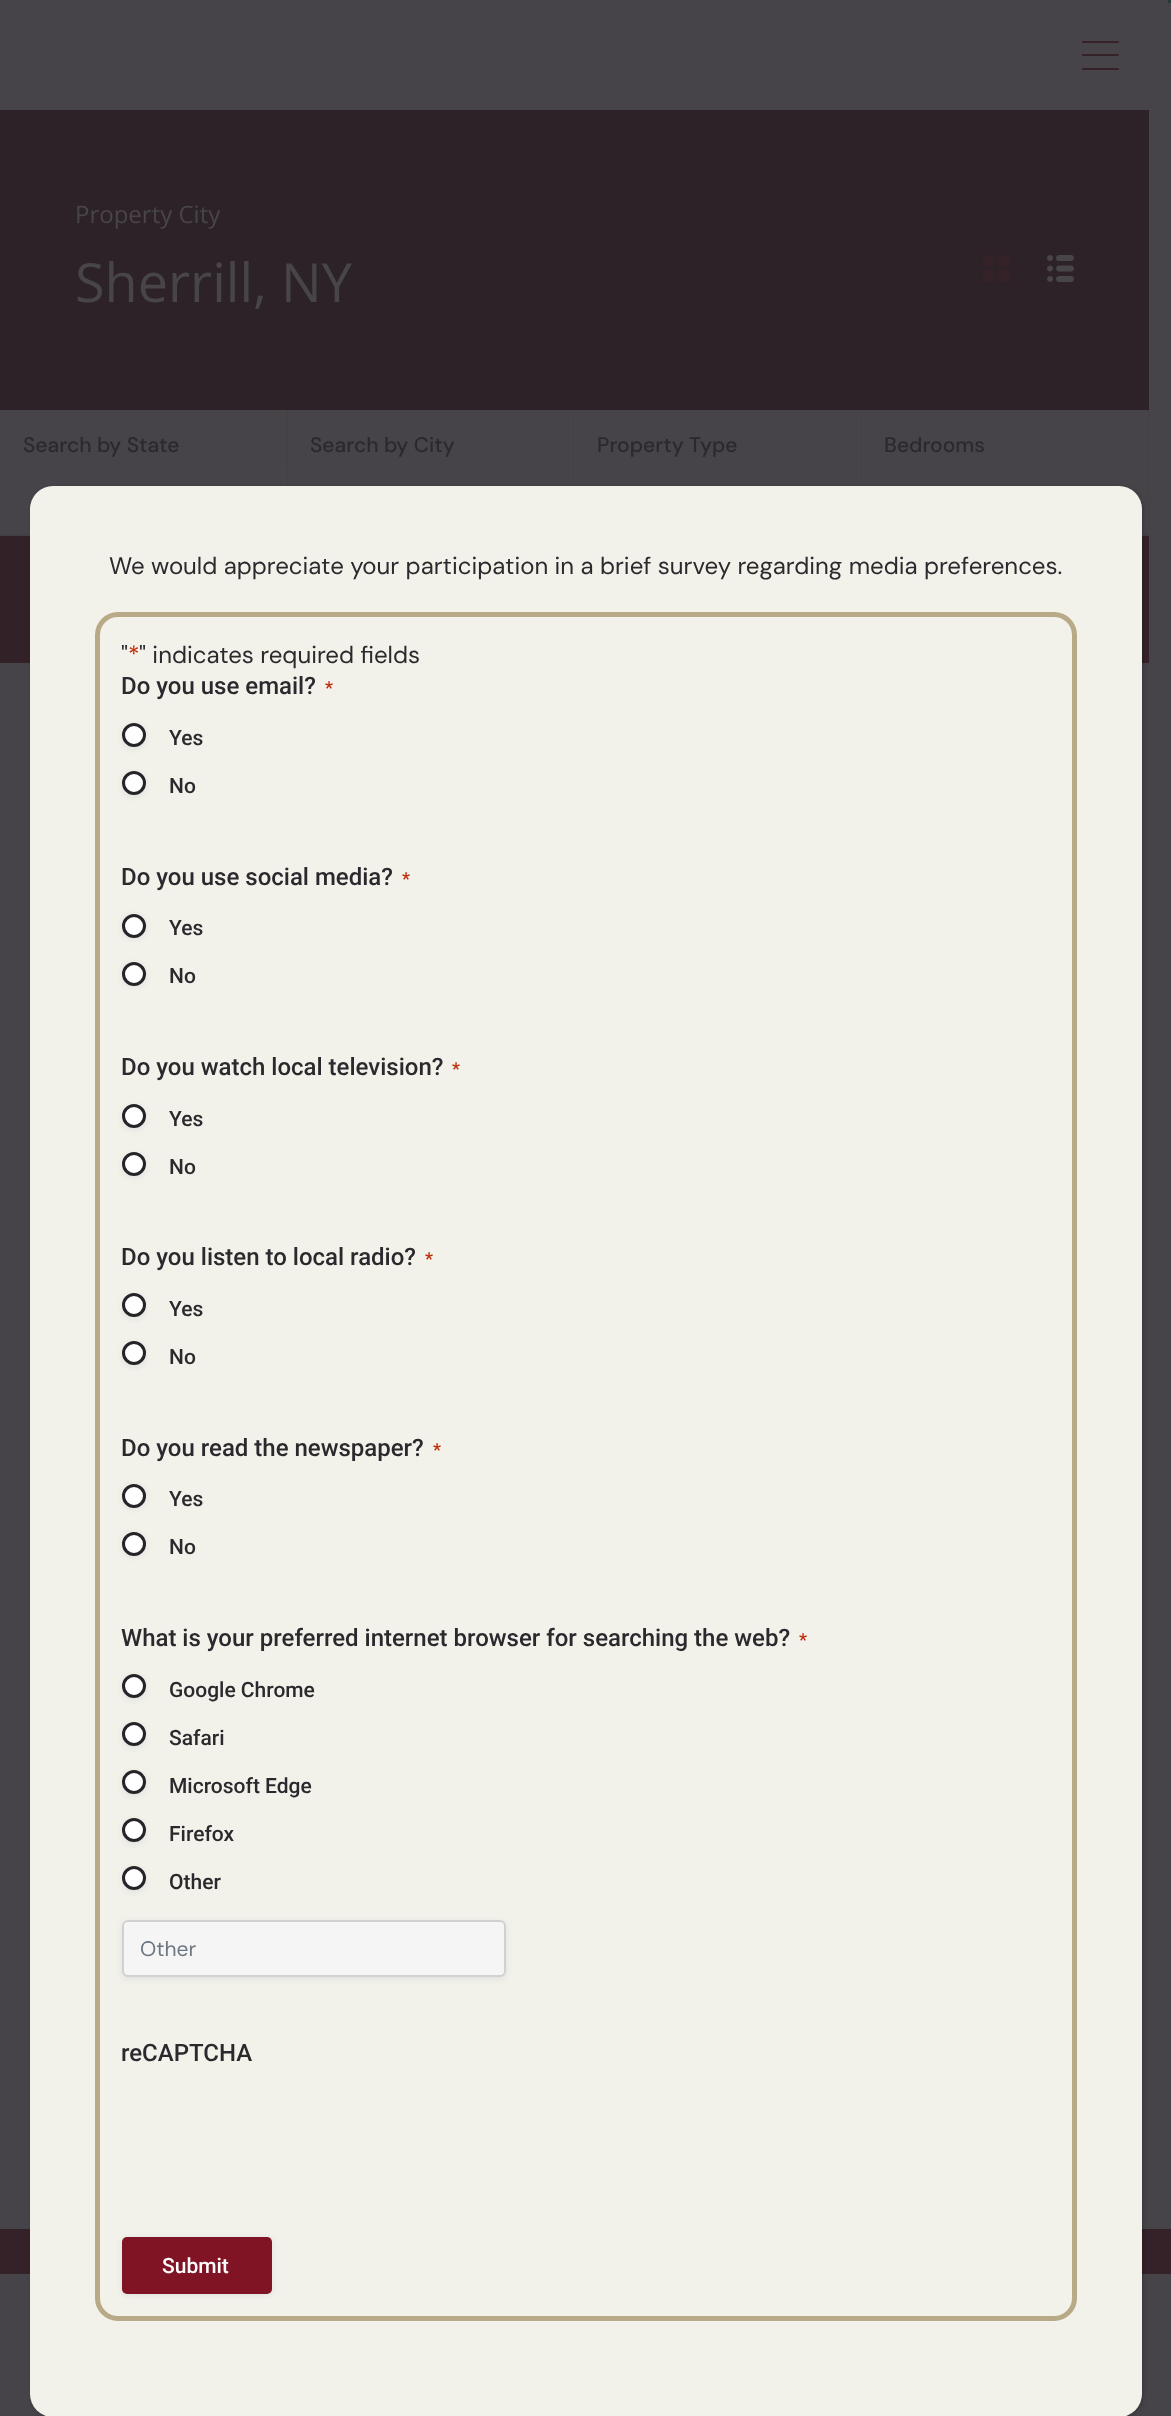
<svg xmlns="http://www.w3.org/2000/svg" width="1171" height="2416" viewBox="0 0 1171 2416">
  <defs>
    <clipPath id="clip1"><path d="M0 0h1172v3H0z"/></clipPath>
  </defs>
  <rect width="100%" height="100%" fill="#464448"/>
  <g clip-path="url(#clip1)">
    <path d="M1168 1.5H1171.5" fill="none" stroke="#26383a" stroke-width="3.5"/>
  </g>
  <rect x="1082" y="54" width="37" height="2" rx="1" fill="#342228"/>
  <rect x="1082" y="41" width="37" height="2" rx="1" fill="#342228"/>
  <rect x="1082" y="68" width="37" height="2" rx="1" fill="#342228"/>
  <path d="M0 110h1149v300H0z" fill="#2d2227"/>
  <image x="983" y="255" width="27" height="27" href="img/1.png"/>
  <image x="1047" y="255" width="27" height="27" href="img/2.png"/>
  <path d="M288 410V536L286 534V410Z" fill="#444145"/>
  <path d="M288 536H0V534H286Z" fill="#34323633"/>
  <path d="M286 462h1v72H286z" fill="#474549"/>
  <path d="M574 410V536L573 534V410Z" fill="#444145"/>
  <path d="M862 410V536L861 534V410Z" fill="#444145"/>
  <path d="M1149 410V536L1148 534V410Z" fill="#444145"/>
  <path d="M1149 536H862V534H1148Z" fill="#34323633"/>
  <path d="M0 536h30v127H0z" fill="#332128"/>
  <path d="M1142 536h7v127H1142z" fill="#342228"/>
  <path d="M0 2229h1171v45H0z" fill="#342228"/>
  <rect x="32" y="488" width="1111" height="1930" rx="23" fill="#0202023b" filter="blur(2px)"/>
  <rect x="30" y="486" width="1112" height="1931" rx="23" fill="#f2f2ea"/>
  <rect x="97.5" y="614.5" width="977" height="1704" rx="20.5" fill="none" stroke="#b8a987" stroke-width="5"/>
  <rect x="122" y="725" width="24" height="24" rx="12" fill="#12196114" filter="blur(3px)"/>
  <circle cx="134" cy="735" r="10.5" fill="#fff" stroke="#272429" stroke-width="3"/>
  <rect x="122" y="773" width="24" height="24" rx="12" fill="#12196114" filter="blur(3px)"/>
  <circle cx="134" cy="783" r="10.5" fill="#fff" stroke="#272429" stroke-width="3"/>
  <rect x="122" y="915" width="24" height="24" rx="12" fill="#12196114" filter="blur(3px)"/>
  <circle cx="134" cy="926" r="10.5" fill="#fff" stroke="#272429" stroke-width="3"/>
  <rect x="122" y="963" width="24" height="24" rx="12" fill="#12196114" filter="blur(3px)"/>
  <circle cx="134" cy="974" r="10.5" fill="#fff" stroke="#272429" stroke-width="3"/>
  <rect x="122" y="1106" width="24" height="24" rx="12" fill="#12196114" filter="blur(3px)"/>
  <circle cx="134" cy="1116" r="10.5" fill="#fff" stroke="#272429" stroke-width="3"/>
  <rect x="122" y="1154" width="24" height="24" rx="12" fill="#12196114" filter="blur(3px)"/>
  <circle cx="134" cy="1164" r="10.5" fill="#fff" stroke="#272429" stroke-width="3"/>
  <rect x="122" y="1295" width="24" height="24" rx="12" fill="#12196114" filter="blur(3px)"/>
  <circle cx="134" cy="1305" r="10.5" fill="#fff" stroke="#272429" stroke-width="3"/>
  <rect x="122" y="1343" width="24" height="24" rx="12" fill="#12196114" filter="blur(3px)"/>
  <circle cx="134" cy="1353" r="10.5" fill="#fff" stroke="#272429" stroke-width="3"/>
  <rect x="122" y="1485" width="24" height="24" rx="12" fill="#12196114" filter="blur(3px)"/>
  <circle cx="134" cy="1496" r="10.5" fill="#fff" stroke="#272429" stroke-width="3"/>
  <rect x="122" y="1533" width="24" height="24" rx="12" fill="#12196114" filter="blur(3px)"/>
  <circle cx="134" cy="1544" r="10.5" fill="#fff" stroke="#272429" stroke-width="3"/>
  <rect x="122" y="1676" width="24" height="24" rx="12" fill="#12196114" filter="blur(3px)"/>
  <circle cx="134" cy="1686" r="10.5" fill="#fff" stroke="#272429" stroke-width="3"/>
  <rect x="122" y="1724" width="24" height="24" rx="12" fill="#12196114" filter="blur(3px)"/>
  <circle cx="134" cy="1734" r="10.5" fill="#fff" stroke="#272429" stroke-width="3"/>
  <rect x="122" y="1772" width="24" height="24" rx="12" fill="#12196114" filter="blur(3px)"/>
  <circle cx="134" cy="1782" r="10.5" fill="#fff" stroke="#272429" stroke-width="3"/>
  <rect x="122" y="1820" width="24" height="24" rx="12" fill="#12196114" filter="blur(3px)"/>
  <circle cx="134" cy="1830" r="10.5" fill="#fff" stroke="#272429" stroke-width="3"/>
  <rect x="122" y="1868" width="24" height="24" rx="12" fill="#12196114" filter="blur(3px)"/>
  <circle cx="134" cy="1878" r="10.5" fill="#fff" stroke="#272429" stroke-width="3"/>
  <rect x="122" y="1922" width="384" height="57" rx="6" fill="#12196114" filter="blur(3px)"/>
  <rect x="123" y="1921" width="382" height="55" rx="5" fill="#f5f5f5" stroke="#d1d1d1" stroke-width="2"/>
  <rect x="122" y="2238" width="150" height="57" rx="5" fill="#12196114" filter="blur(3px)"/>
  <rect x="122" y="2237" width="150" height="57" rx="5" fill="#801424"/>
  <text x="75" y="223" font-family="Open Sans" font-size="24" fill="#474549">Property City</text>
  <text x="75" y="302" font-family="Open Sans" font-size="54" fill="#474549">Sherrill, NY</text>
  <g font-family="DM Sans" font-size="21" font-weight="500" fill="#2b292d">
    <text x="23" y="452">Search by State</text>
    <text x="310" y="452">Search by City</text>
    <text x="597" y="452">Property Type</text>
    <text x="884" y="452">Bedrooms</text>
  </g>
  <g font-family="DM Sans" font-size="24" fill="#2b292d">
    <text x="109" y="574">We would appreciate your participation in a brief survey regarding media preferences.</text>
    <text x="121" y="663">"</text>
  </g>
  <text x="128" y="663" font-family="DM Sans" font-size="24" fill="#c02b0a">*</text>
  <text x="139" y="663" font-family="DM Sans" font-size="24" fill="#2b292d">" indicates required fields</text>
  <text x="121" y="694" font-family="Roboto" font-size="24" font-weight="500" fill="#2b292d">Do you use email?</text>
  <text x="325" y="694" font-family="Roboto" font-size="18" font-weight="500" fill="#c02b0a">*</text>
  <g font-family="Roboto" font-size="21" font-weight="500" fill="#2b292d">
    <text x="169" y="745">Yes</text>
    <text x="169" y="793">No</text>
  </g>
  <text x="121" y="885" font-family="Roboto" font-size="24" font-weight="500" fill="#2b292d">Do you use social media?</text>
  <text x="402" y="885" font-family="Roboto" font-size="18" font-weight="500" fill="#c02b0a">*</text>
  <g font-family="Roboto" font-size="21" font-weight="500" fill="#2b292d">
    <text x="169" y="935">Yes</text>
    <text x="169" y="983">No</text>
  </g>
  <text x="121" y="1075" font-family="Roboto" font-size="24" font-weight="500" fill="#2b292d">Do you watch local television?</text>
  <text x="452" y="1075" font-family="Roboto" font-size="18" font-weight="500" fill="#c02b0a">*</text>
  <g font-family="Roboto" font-size="21" font-weight="500" fill="#2b292d">
    <text x="169" y="1126">Yes</text>
    <text x="169" y="1174">No</text>
  </g>
  <text x="121" y="1265" font-family="Roboto" font-size="24" font-weight="500" fill="#2b292d">Do you listen to local radio?</text>
  <text x="425" y="1265" font-family="Roboto" font-size="18" font-weight="500" fill="#c02b0a">*</text>
  <g font-family="Roboto" font-size="21" font-weight="500" fill="#2b292d">
    <text x="169" y="1316">Yes</text>
    <text x="169" y="1364">No</text>
  </g>
  <text x="121" y="1456" font-family="Roboto" font-size="24" font-weight="500" fill="#2b292d">Do you read the newspaper?</text>
  <text x="433" y="1456" font-family="Roboto" font-size="18" font-weight="500" fill="#c02b0a">*</text>
  <g font-family="Roboto" font-size="21" font-weight="500" fill="#2b292d">
    <text x="169" y="1506">Yes</text>
    <text x="169" y="1554">No</text>
  </g>
  <text x="121" y="1646" font-family="Roboto" font-size="24" font-weight="500" fill="#2b292d">What is your preferred internet browser for searching the web?</text>
  <text x="799" y="1646" font-family="Roboto" font-size="18" font-weight="500" fill="#c02b0a">*</text>
  <g font-family="Roboto" font-size="21" font-weight="500" fill="#2b292d">
    <text x="169" y="1697">Google Chrome</text>
    <text x="169" y="1745">Safari</text>
    <text x="169" y="1793">Microsoft Edge</text>
    <text x="169" y="1841">Firefox</text>
    <text x="169" y="1889">Other</text>
  </g>
  <text x="140" y="1956" font-family="DM Sans" font-size="21" fill="#6c7783">Other</text>
  <text x="121" y="2061" font-family="Roboto" font-size="24" font-weight="500" fill="#2b292d">reCAPTCHA</text>
  <text x="162" y="2273" font-family="Roboto" font-size="21" font-weight="500" fill="#fff">Submit</text>
</svg>
